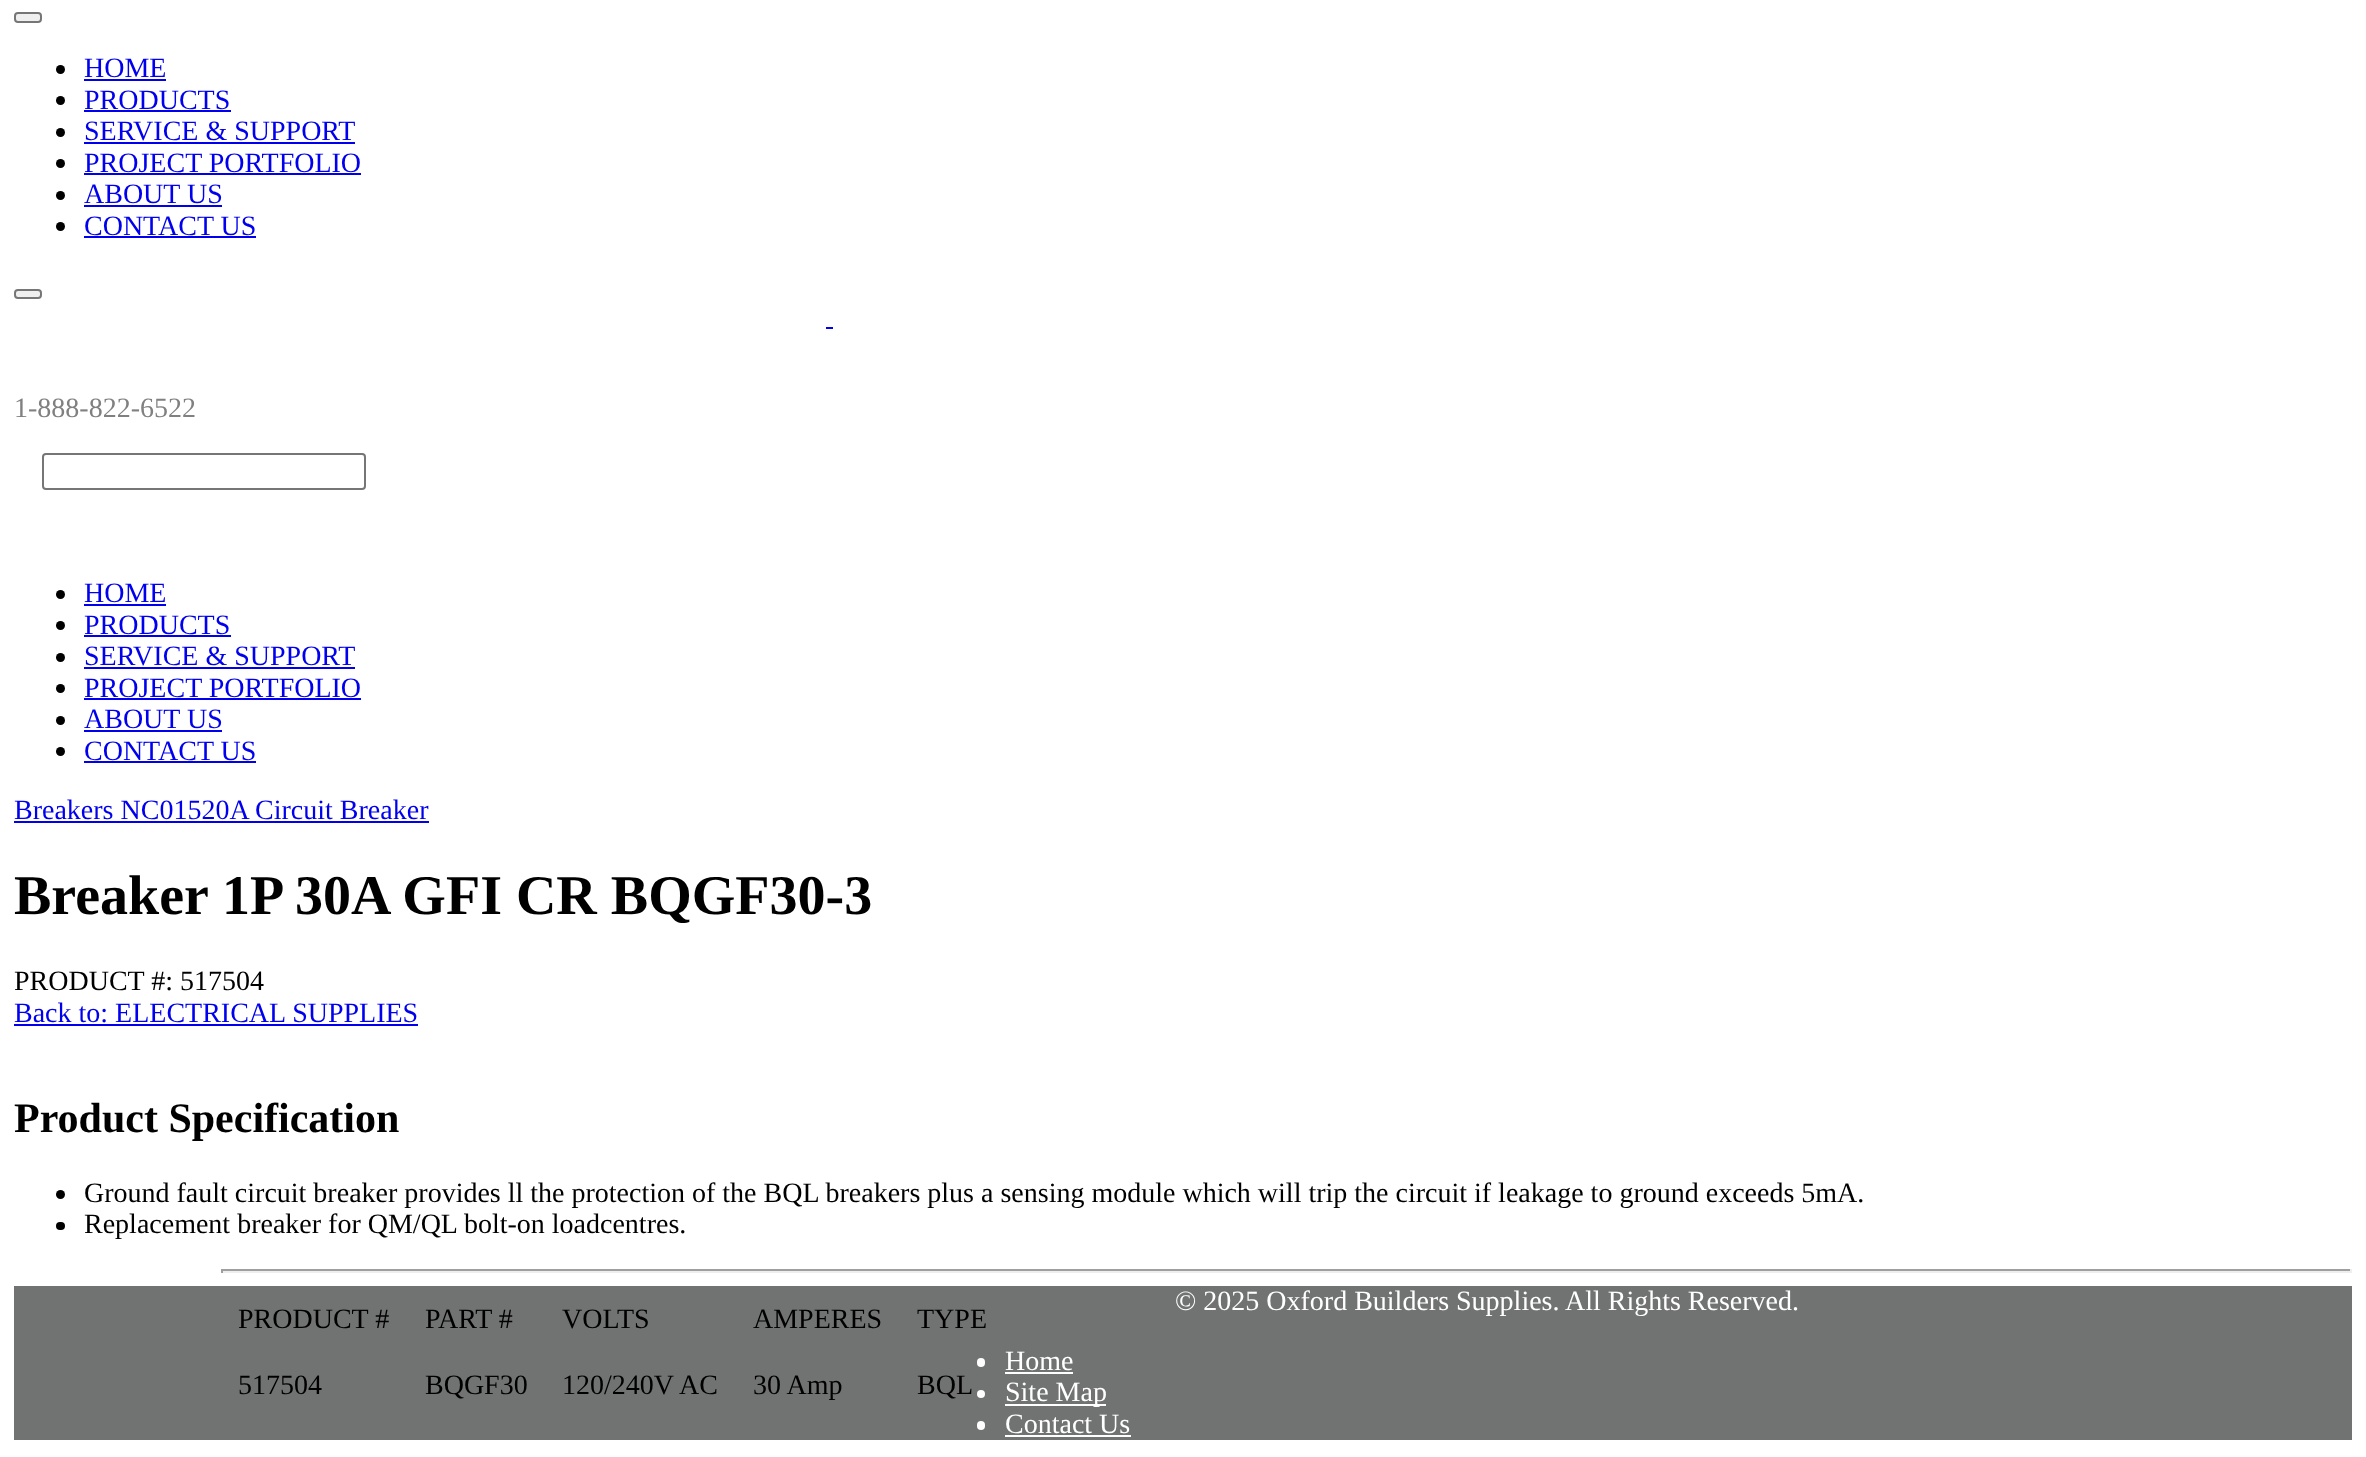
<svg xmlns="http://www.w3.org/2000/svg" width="2366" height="1457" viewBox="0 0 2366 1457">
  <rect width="100%" height="100%" fill="#fff"/>
  <rect x="15" y="13" width="26" height="9" rx="3" fill="#efefef" stroke="#767676" stroke-width="2"/>
  <circle cx="60.5" cy="69.5" r="4.5" fill="#000"/>
  <path d="M84 79h82v2H84z" fill="#00e"/>
  <circle cx="60.5" cy="100.5" r="4.5" fill="#000"/>
  <path d="M84 110h147v2H84z" fill="#00e"/>
  <circle cx="60.5" cy="132.5" r="4.5" fill="#000"/>
  <path d="M84 142h271v2H84z" fill="#00e"/>
  <circle cx="60.5" cy="163.5" r="4.5" fill="#000"/>
  <path d="M84 173h277v2H84z" fill="#00e"/>
  <circle cx="60.5" cy="195.5" r="4.5" fill="#000"/>
  <path d="M84 205h138v2H84z" fill="#00e"/>
  <circle cx="60.5" cy="226.5" r="4.5" fill="#000"/>
  <path d="M84 236h172v2H84z" fill="#00e"/>
  <rect x="15" y="290" width="26" height="8" rx="3" fill="#efefef" stroke="#767676" stroke-width="2"/>
  <path d="M826 327h7v2H826z" fill="#00e"/>
  <rect x="43" y="454" width="322" height="35" rx="3" fill="none" stroke="#767676" stroke-width="2"/>
  <circle cx="60.5" cy="594.5" r="4.5" fill="#000"/>
  <path d="M84 604h82v2H84z" fill="#00e"/>
  <circle cx="60.5" cy="625.5" r="4.5" fill="#000"/>
  <path d="M84 635h147v2H84z" fill="#00e"/>
  <circle cx="60.5" cy="657.5" r="4.5" fill="#000"/>
  <path d="M84 667h271v2H84z" fill="#00e"/>
  <circle cx="60.5" cy="688.5" r="4.5" fill="#000"/>
  <path d="M84 698h277v2H84z" fill="#00e"/>
  <circle cx="60.5" cy="720.5" r="4.5" fill="#000"/>
  <path d="M84 730h138v2H84z" fill="#00e"/>
  <circle cx="60.5" cy="751.5" r="4.5" fill="#000"/>
  <path d="M84 761h172v2H84z" fill="#00e"/>
  <path d="M14 821h415v2H14z" fill="#00e"/>
  <path d="M14 1024h404v2H14z" fill="#00e"/>
  <circle cx="60.5" cy="1194.5" r="4.5" fill="#000"/>
  <rect x="56" y="1222" width="9" height="8" rx="4" fill="#000"/>
  <path d="M221 1269h2131v2H221z" fill="#9f9f9f"/>
  <path d="M2350 1269h2v4H2350z" fill="#eee"/>
  <path d="M221 1271h2131v2H221z" fill="#eee"/>
  <path d="M221 1269h2v4H221z" fill="#9f9f9f"/>
  <path d="M14 1286h2338v154H14z" fill="#717372"/>
  <rect x="977" y="1358" width="8" height="9" rx="4" fill="#fff"/>
  <path d="M1005 1372h68v2H1005z" fill="#fff"/>
  <circle cx="981" cy="1394" r="4" fill="#fff"/>
  <path d="M1005 1404h101v2H1005z" fill="#fff"/>
  <rect x="977" y="1421" width="8" height="9" rx="4" fill="#fff"/>
  <path d="M1005 1435h126v2H1005z" fill="#fff"/>
  <g font-family="Liberation Serif" font-size="28" fill="#00e">
    <text x="84" y="77">HOME</text>
    <text x="84" y="109">PRODUCTS</text>
    <text x="84" y="140">SERVICE &amp; SUPPORT</text>
    <text x="84" y="172">PROJECT PORTFOLIO</text>
    <text x="84" y="203">ABOUT US</text>
    <text x="84" y="235">CONTACT US</text>
  </g>
  <text x="14" y="417" font-family="Liberation Serif" font-size="28" fill="#808080">1-888-822-6522</text>
  <g font-family="Liberation Serif" font-size="28" fill="#00e">
    <text x="84" y="602">HOME</text>
    <text x="84" y="634">PRODUCTS</text>
    <text x="84" y="665">SERVICE &amp; SUPPORT</text>
    <text x="84" y="697">PROJECT PORTFOLIO</text>
    <text x="84" y="728">ABOUT US</text>
    <text x="84" y="760">CONTACT US</text>
    <text x="14" y="819">Breakers NC01520A Circuit Breaker</text>
  </g>
  <text x="14" y="914" font-family="Liberation Serif" font-size="56" font-weight="bold" fill="#000">Breaker 1P 30A GFI CR BQGF30-3</text>
  <text x="14" y="990" font-family="Liberation Serif" font-size="28" fill="#000">PRODUCT #: 517504</text>
  <text x="14" y="1022" font-family="Liberation Serif" font-size="28" fill="#00e">Back to: ELECTRICAL SUPPLIES</text>
  <text x="14" y="1132" font-family="Liberation Serif" font-size="42" font-weight="bold" fill="#000">Product Specification</text>
  <g font-family="Liberation Serif" font-size="28" fill="#000">
    <text x="84" y="1202">Ground fault circuit breaker provides ll the protection of the BQL breakers plus a sensing module which will trip the circuit if leakage to ground exceeds 5mA.</text>
    <text x="84" y="1233">Replacement breaker for QM/QL bolt-on loadcentres.</text>
    <text x="238" y="1328">PRODUCT #</text>
    <text x="425" y="1328">PART #</text>
    <text x="562" y="1328">VOLTS</text>
    <text x="753" y="1328">AMPERES</text>
    <text x="917" y="1328">TYPE</text>
    <text x="238" y="1394">517504</text>
    <text x="425" y="1394">BQGF30</text>
    <text x="562" y="1394">120/240V AC</text>
    <text x="753" y="1394">30 Amp</text>
    <text x="917" y="1394">BQL</text>
  </g>
  <g font-family="Liberation Serif" font-size="28" fill="#fff">
    <text x="1175" y="1310">© 2025 Oxford Builders Supplies. All Rights Reserved.</text>
    <text x="1005" y="1370">Home</text>
    <text x="1005" y="1401">Site Map</text>
    <text x="1005" y="1433">Contact Us</text>
  </g>
</svg>
